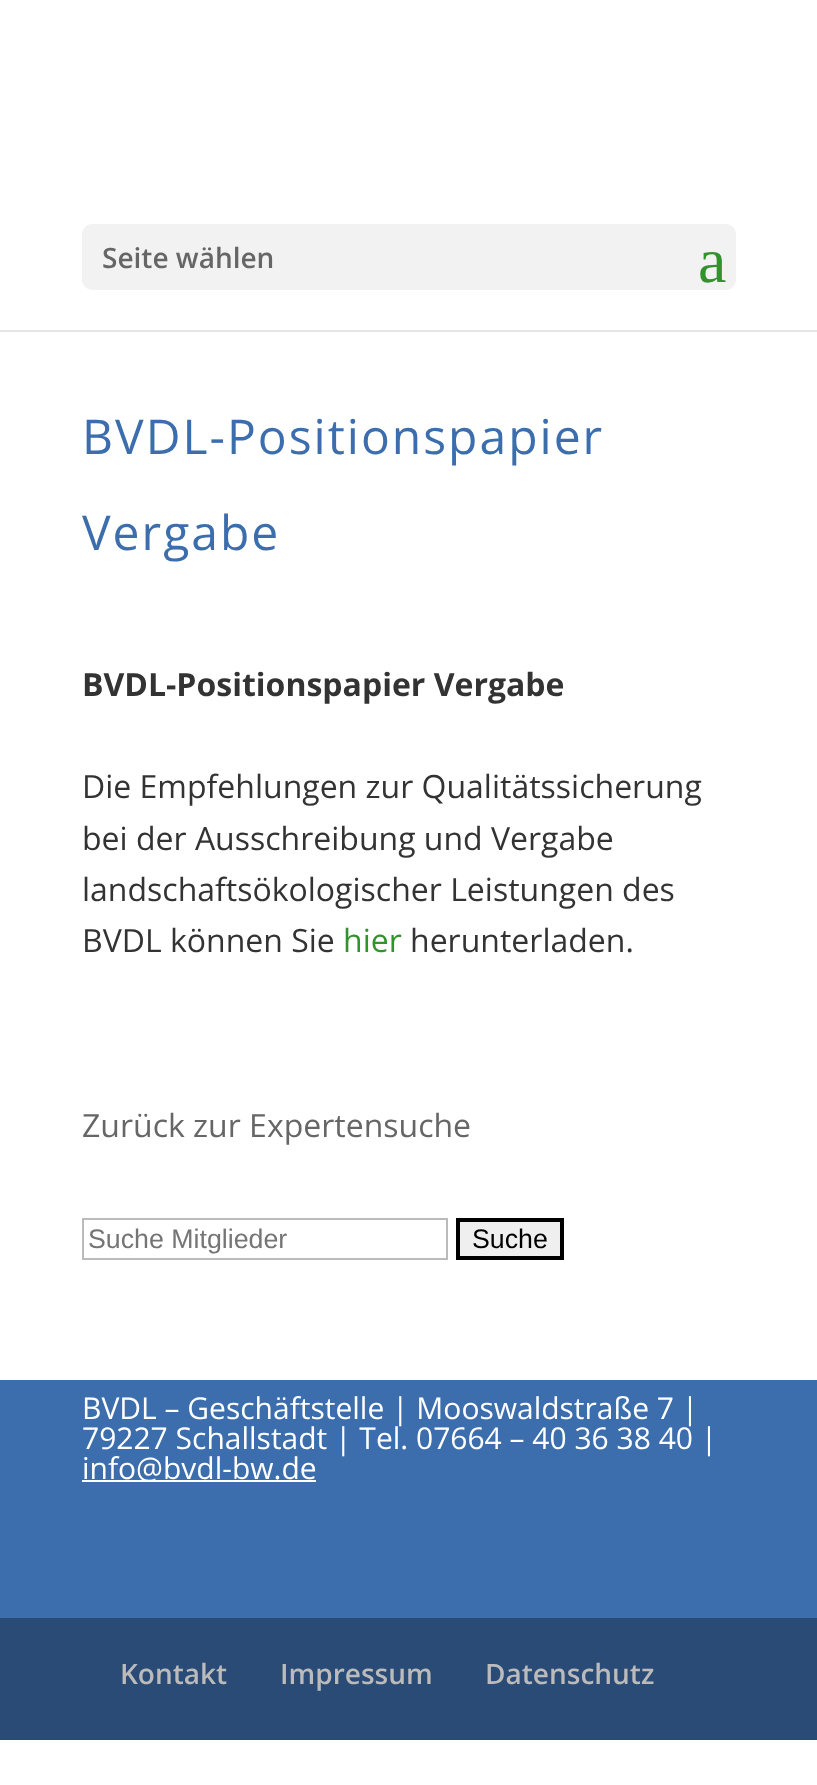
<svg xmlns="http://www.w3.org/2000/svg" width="817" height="1785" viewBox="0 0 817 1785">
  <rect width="100%" height="100%" fill="#fff"/>
  <path d="M0 330h817v2H0z" fill="#e6e6e6"/>
  <rect x="82" y="224" width="654" height="66" rx="10" fill="#f2f2f2"/>
  <path d="M83 1219h364v40H83z" fill="none" stroke="#bbb" stroke-width="2"/>
  <path d="M458 1220h104v38H458z" fill="#efefef" stroke="#000" stroke-width="4"/>
  <path d="M0 1380h817v238H0z" fill="#3c6ead"/>
  <path d="M82 1480h234v2H82z" fill="#fff"/>
  <path d="M0 1618h817v122H0z" fill="#294b76"/>
  <text x="102" y="268" font-family="Open Sans" font-size="28" font-weight="600" fill="#666">Seite wählen</text>
  <text x="698" y="282" font-family="Liberation Serif" font-size="64" fill="#33922e">a</text>
  <g font-family="Open Sans" font-size="48" letter-spacing="2" fill="#3c6ead">
    <text x="82" y="454">BVDL-Positionspapier</text>
    <text x="82" y="550">Vergabe</text>
  </g>
  <text x="82" y="696" font-family="Open Sans" font-size="32" font-weight="bold" fill="#333">BVDL-Positionspapier Vergabe</text>
  <g font-family="Open Sans" font-size="32" fill="#333">
    <text x="82" y="798">Die Empfehlungen zur Qualitätssicherung</text>
    <text x="82" y="850">bei der Ausschreibung und Vergabe</text>
    <text x="82" y="901">landschaftsökologischer Leistungen des</text>
    <text x="82" y="952">BVDL können Sie</text>
  </g>
  <text x="343" y="952" font-family="Open Sans" font-size="32" fill="#33922e">hier</text>
  <text x="410" y="952" font-family="Open Sans" font-size="32" fill="#333">herunterladen.</text>
  <text x="82" y="1137" font-family="Open Sans" font-size="32" fill="#666">Zurück zur Expertensuche</text>
  <text x="88" y="1248" font-family="Liberation Sans" font-size="26.75" fill="#757575">Suche Mitglieder</text>
  <text x="472" y="1248" font-family="Liberation Sans" font-size="26.75" fill="#000">Suche</text>
  <g font-family="Open Sans" font-size="30" fill="#fff">
    <text x="82" y="1419">BVDL – Geschäftstelle | Mooswaldstraße 7 |</text>
    <text x="82" y="1449">79227 Schallstadt | Tel. 07664 – 40 36 38 40 |</text>
    <text x="82" y="1479">info@bvdl-bw.de</text>
  </g>
  <g font-family="Open Sans" font-size="28" font-weight="600" fill="#bbb">
    <text x="120" y="1684">Kontakt</text>
    <text x="280" y="1684">Impressum</text>
    <text x="485" y="1684">Datenschutz</text>
  </g>
</svg>
